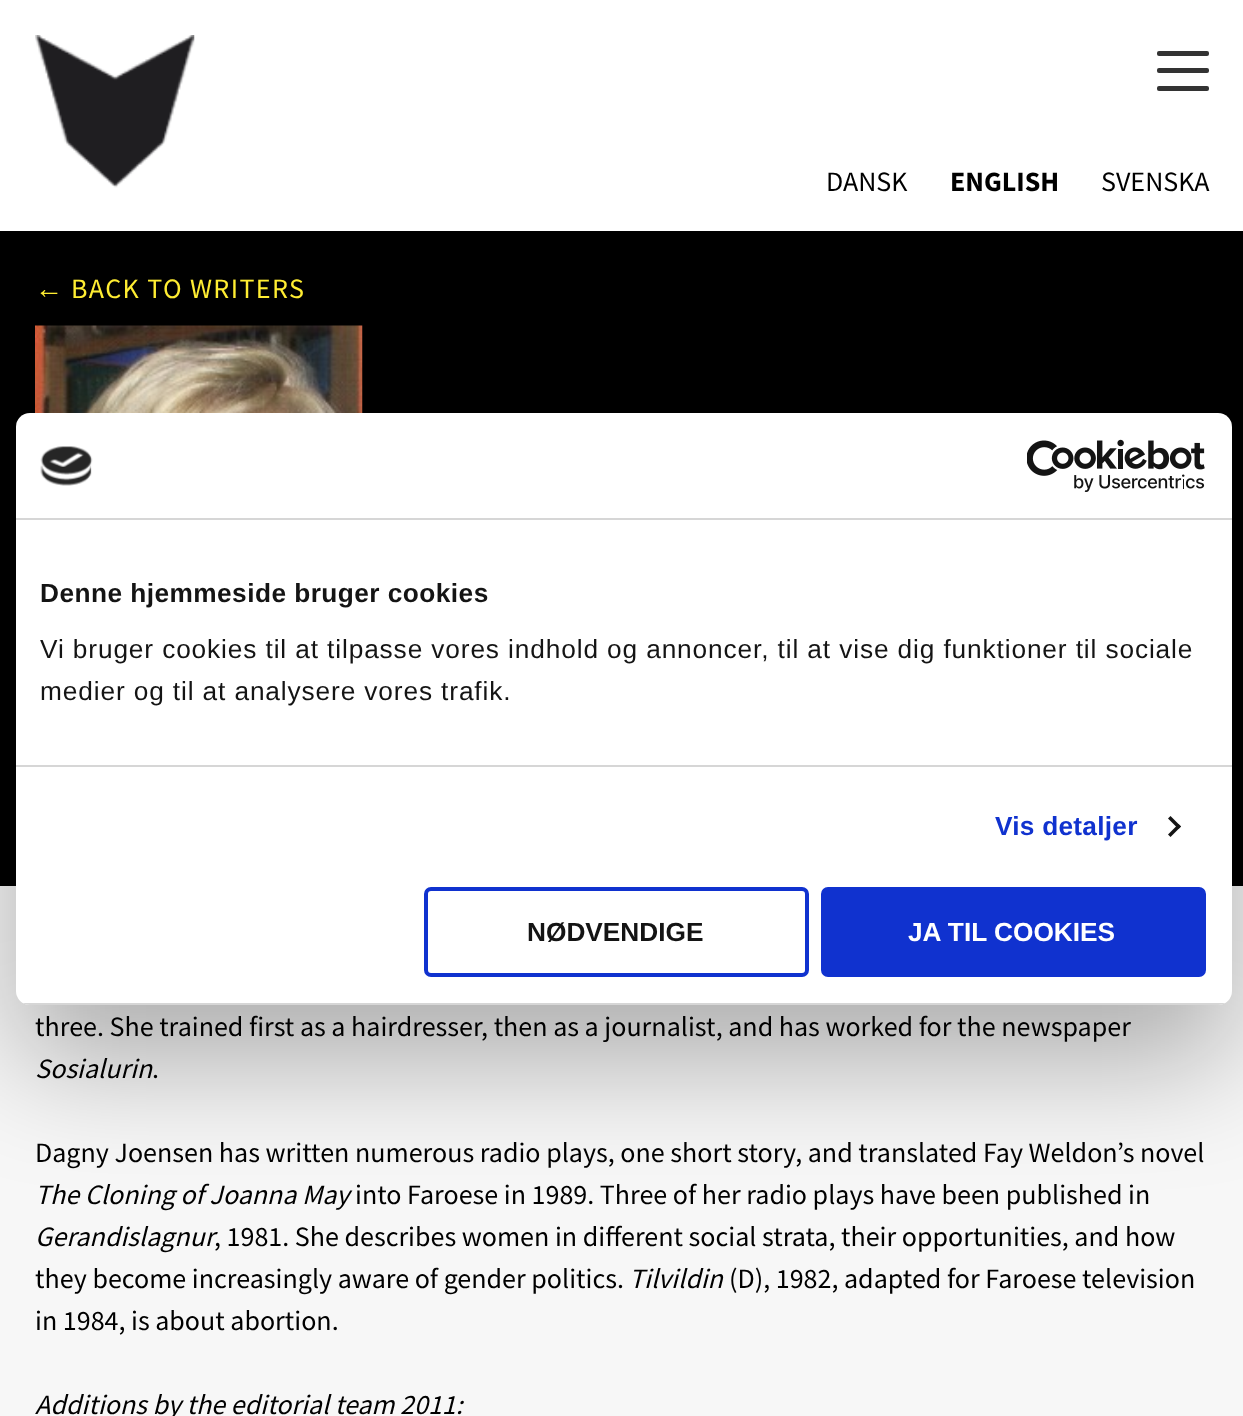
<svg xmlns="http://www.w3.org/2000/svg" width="1243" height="1416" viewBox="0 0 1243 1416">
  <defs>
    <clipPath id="clip1"><rect x="16" y="413" width="1216" height="592" rx="14"/></clipPath>
  </defs>
  <rect width="100%" height="100%" fill="#f7f7f7"/>
  <path d="M0 0h1243v231H0z" fill="#fff"/>
  <image x="35" y="35" width="160" height="153" href="img/1.png"/>
  <rect x="1157" y="68" width="52" height="5" rx="2" fill="#333"/>
  <rect x="1157" y="51" width="52" height="5" rx="2" fill="#333"/>
  <rect x="1157" y="86" width="52" height="5" rx="2" fill="#333"/>
  <path d="M0 231h1243v655H0z" fill="#000"/>
  <image x="35" y="325" width="328" height="88" href="img/2.png"/>
  <rect x="16" y="469" width="1216" height="592" rx="14" fill="#0000004d" filter="blur(59.5px)"/>
  <rect x="16" y="413" width="1216" height="592" rx="14" fill="#fff"/>
  <path d="M16 518h1216v2H16z" fill="#d6d6d6"/>
  <image x="40" y="446" width="53" height="40" href="img/3.png"/>
  <image x="1027" y="439" width="178" height="53" href="img/4.png"/>
  <path d="M16 765h1216v2H16z" fill="#d6d6d6"/>
  <path d="M1170.5 816L1181 826.5L1178.5 829L1168 818.5Z" fill="#141414"/>
  <path d="M1178.5 824L1181 826.5L1170.5 837L1168 834.5Z" fill="#141414"/>
  <g clip-path="url(#clip1)">
    <path d="M16 1003h1216v2H16z" fill="#d6d6d6"/>
  </g>
  <rect x="426" y="889" width="381" height="86" rx="5" fill="none" stroke="#1032cf" stroke-width="4"/>
  <rect x="823" y="889" width="381" height="86" rx="5" fill="#1032cf" stroke="#1032cf" stroke-width="4"/>
  <text x="826" y="191" font-family="Source Sans Pro" font-size="28" fill="#000">DANSK</text>
  <text x="950" y="191" font-family="Source Sans Pro" font-size="28" font-weight="bold" fill="#000">ENGLISH</text>
  <text x="1101" y="191" font-family="Source Sans Pro" font-size="28" fill="#000">SVENSKA</text>
  <text x="35" y="298" font-family="Liberation Serif" font-size="28" letter-spacing="1.4" fill="#ffed32">←</text>
  <text x="71" y="298" font-family="Source Sans Pro" font-size="28" letter-spacing="1.4" fill="#ffed32">BACK TO WRITERS</text>
  <text x="35" y="1036" font-family="Source Sans Pro" font-size="28" fill="#000">three. She trained first as a hairdresser, then as a journalist, and has worked for the newspaper</text>
  <text x="35" y="1078" font-family="Source Sans Pro" font-size="28" font-style="italic" fill="#000">Sosialurin</text>
  <g font-family="Source Sans Pro" font-size="28" fill="#000">
    <text x="152" y="1078">.</text>
    <text x="35" y="1162">Dagny Joensen has written numerous radio plays, one short story, and translated Fay Weldon’s novel</text>
  </g>
  <text x="35" y="1204" font-family="Source Sans Pro" font-size="28" font-style="italic" fill="#000">The Cloning of Joanna May</text>
  <text x="355" y="1204" font-family="Source Sans Pro" font-size="28" fill="#000">into Faroese in 1989. Three of her radio plays have been published in</text>
  <text x="35" y="1246" font-family="Source Sans Pro" font-size="28" font-style="italic" fill="#000">Gerandislagnur</text>
  <g font-family="Source Sans Pro" font-size="28" fill="#000">
    <text x="214" y="1246">, 1981. She describes women in different social strata, their opportunities, and how</text>
    <text x="35" y="1288">they become increasingly aware of gender politics.</text>
  </g>
  <text x="629" y="1288" font-family="Source Sans Pro" font-size="28" font-style="italic" fill="#000">Tilvildin</text>
  <g font-family="Source Sans Pro" font-size="28" fill="#000">
    <text x="729" y="1288">(D), 1982, adapted for Faroese television</text>
    <text x="35" y="1330">in 1984, is about abortion.</text>
  </g>
  <text x="35" y="1414" font-family="Source Sans Pro" font-size="28" font-style="italic" fill="#000">Additions by the editorial team 2011:</text>
  <text x="40" y="602" font-family="Liberation Sans" font-size="26.25" font-weight="bold" letter-spacing="0.45" fill="#141414">Denne hjemmeside bruger cookies</text>
  <g font-family="Liberation Sans" font-size="26.25" letter-spacing="0.88" fill="#141414">
    <text x="40" y="658">Vi bruger cookies til at tilpasse vores indhold og annoncer, til at vise dig funktioner til sociale</text>
    <text x="40" y="700">medier og til at analysere vores trafik.</text>
  </g>
  <text x="995" y="835" font-family="Liberation Sans" font-size="26.25" font-weight="bold" letter-spacing="0.25" fill="#1032cf">Vis detaljer</text>
  <text x="527" y="941" font-family="Liberation Sans" font-size="26.25" font-weight="bold" fill="#141414">NØDVENDIGE</text>
  <text x="908" y="941" font-family="Liberation Sans" font-size="26.25" font-weight="bold" fill="#fff">JA TIL COOKIES</text>
</svg>
